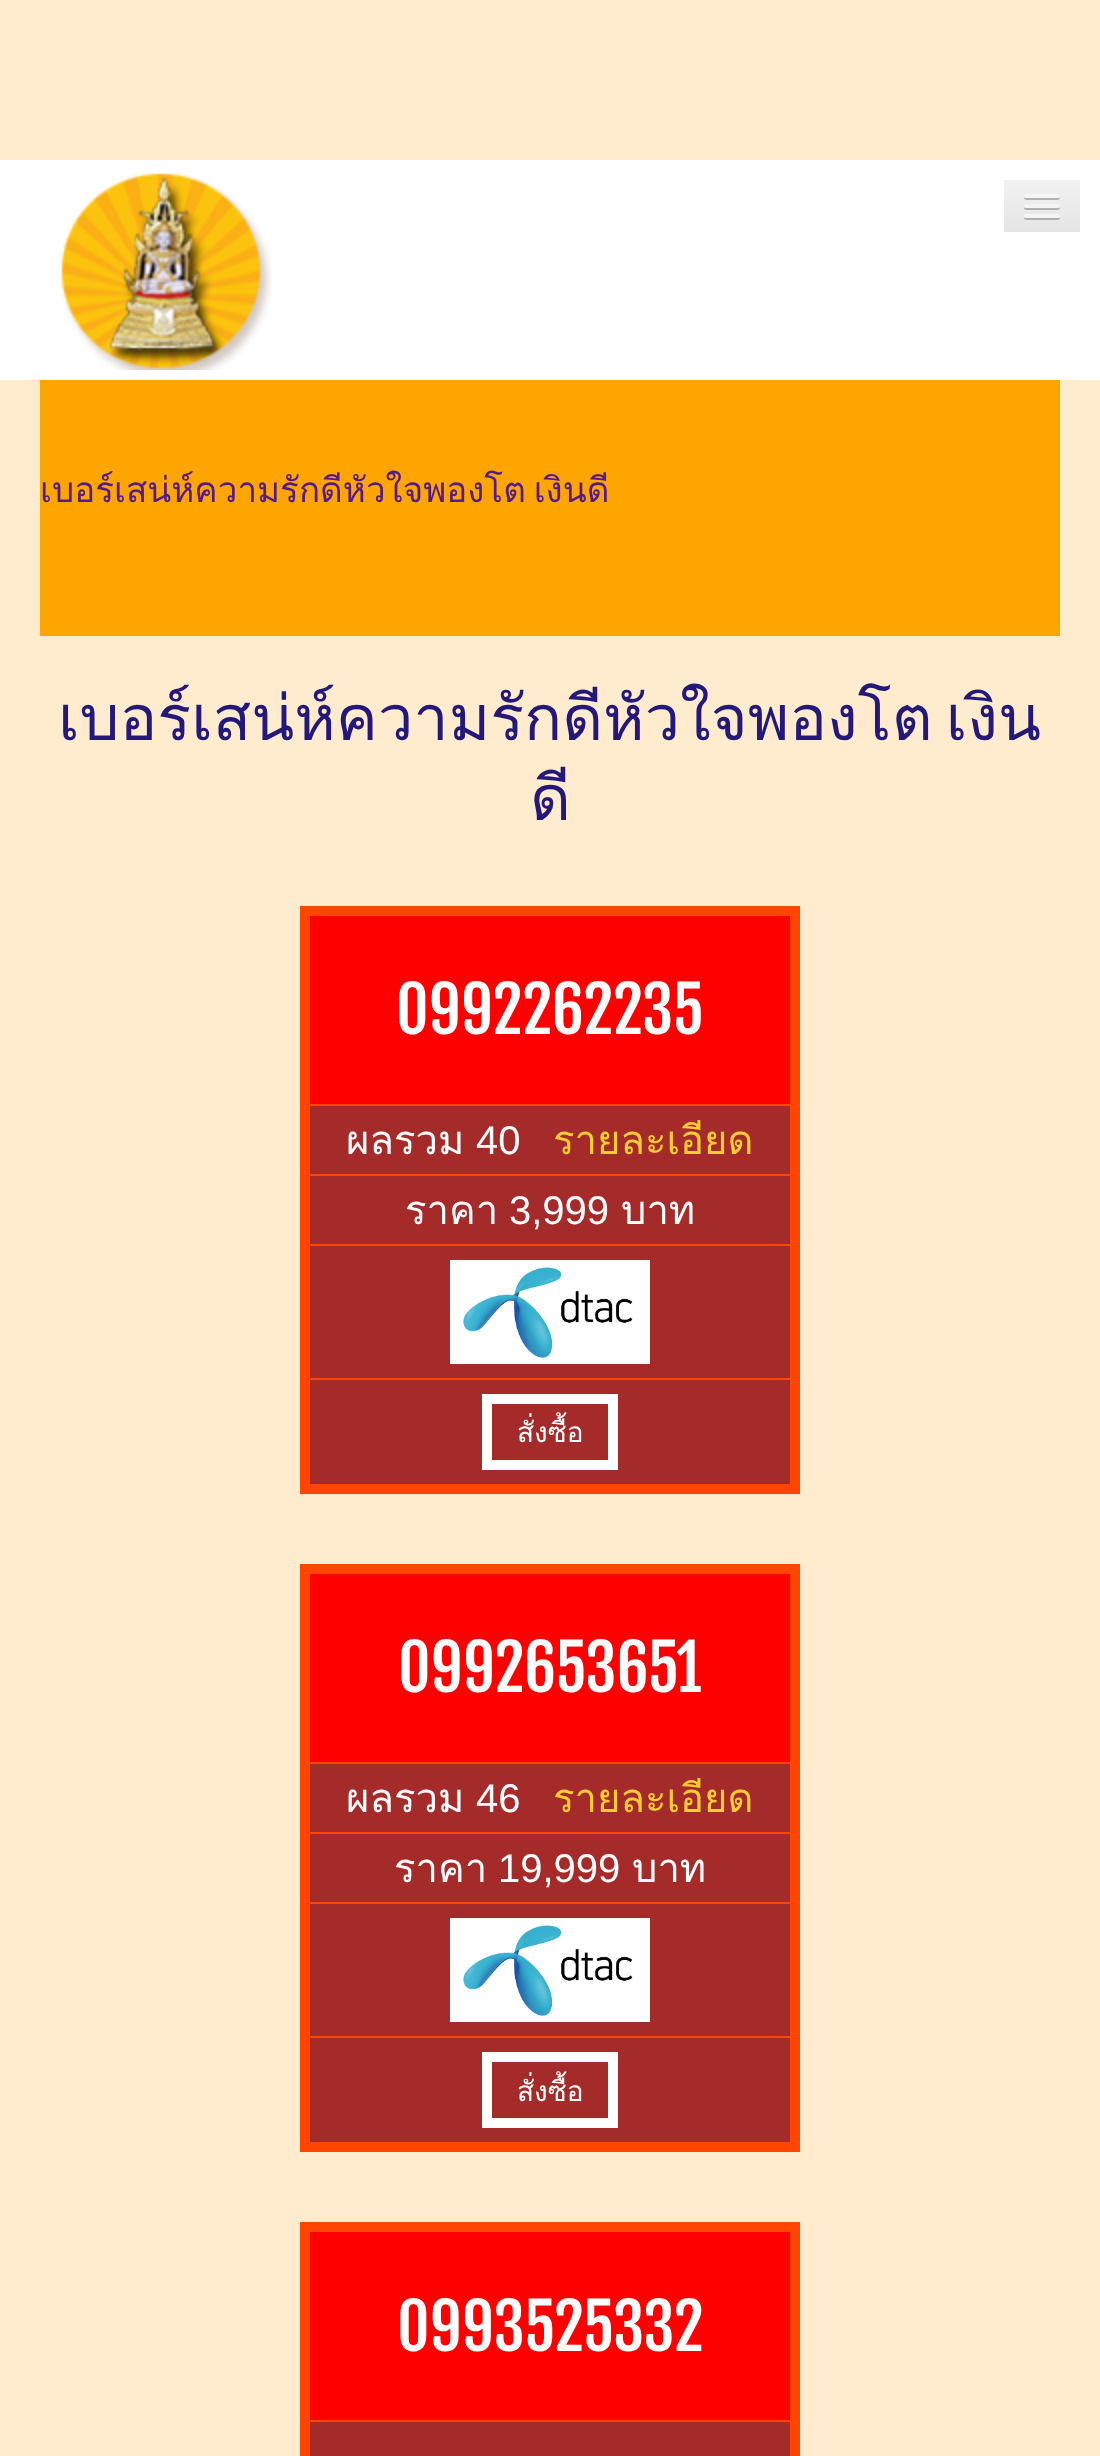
<svg xmlns="http://www.w3.org/2000/svg" width="1100" height="2456" viewBox="0 0 1100 2456">
  <defs>
    <linearGradient id="g1" gradientUnits="userSpaceOnUse" x1="1042" y1="180" x2="1042" y2="232"><stop offset="0" stop-color="#f2f2f2"/><stop offset="1" stop-color="#e5e5e5"/></linearGradient>
  </defs>
  <rect width="100%" height="100%" fill="#ffebcd"/>
  <path d="M0 160h1100v220H0z" fill="#fff"/>
  <image x="61" y="173" width="211" height="197" href="img/1.png"/>
  <path d="M1004 180h76v52H1004z" fill="url(#g1)"/>
  <path d="M1024.5 197C1022 201 1031 200 1031.5 200H1052.5C1053 200 1062 201 1059.5 197C1059.5 197.5 1058.5 198 1058 198H1026C1025.5 198 1024.5 197.5 1024.5 197Z" fill="#b2b2b2"/>
  <rect x="1024" y="194" width="36" height="4" rx="2" fill="#f5f5f5"/>
  <path d="M1024.5 207C1022 211 1031 210 1031.5 210H1052.5C1053 210 1062 211 1059.5 207C1059.5 207.5 1058.5 208 1058 208H1026C1025.5 208 1024.5 207.5 1024.5 207Z" fill="#b0b0b0"/>
  <rect x="1024" y="204" width="36" height="4" rx="2" fill="#f5f5f5"/>
  <path d="M1024.5 217C1022 221 1031 220 1031.5 220H1052.5C1053 220 1062 221 1059.5 217C1059.5 217.5 1058.5 218 1058 218H1026C1025.5 218 1024.5 217.5 1024.5 217Z" fill="#aeaeae"/>
  <rect x="1024" y="214" width="36" height="4" rx="2" fill="#f5f5f5"/>
  <path d="M40 380h1020v256H40z" fill="#ffa500"/>
  <path d="M310 906h480v10H310z" fill="#ff4500"/>
  <path d="M304 1104h492v2H304z" fill="#ff4500"/>
  <path d="M304 1174h492v2H304z" fill="#ff4500"/>
  <path d="M304 1244h492v2H304z" fill="#ff4500"/>
  <path d="M304 1378h492v2H304z" fill="#ff4500"/>
  <path d="M790 906h10v578H790z" fill="#ff4500"/>
  <path d="M310 1484h490v10H310z" fill="#ff4500"/>
  <path d="M300 906h10v588H300z" fill="#ff4500"/>
  <path d="M310 916h480v188H310z" fill="#f00"/>
  <path d="M310 1106h480v68H310z" fill="#a52a2a"/>
  <path d="M310 1176h480v68H310z" fill="#a52a2a"/>
  <path d="M310 1246h480v132H310z" fill="#a52a2a"/>
  <image x="450" y="1260" width="200" height="104" href="img/2.png"/>
  <path d="M310 1380h480v104H310z" fill="#a52a2a"/>
  <path d="M487 1399h126v66H487z" fill="none" stroke="#fff" stroke-width="10"/>
  <path d="M310 1564h480v10H310z" fill="#ff4500"/>
  <path d="M304 1762h492v2H304z" fill="#ff4500"/>
  <path d="M304 1832h492v2H304z" fill="#ff4500"/>
  <path d="M304 1902h492v2H304z" fill="#ff4500"/>
  <path d="M304 2036h492v2H304z" fill="#ff4500"/>
  <path d="M790 1564h10v578H790z" fill="#ff4500"/>
  <path d="M310 2142h490v10H310z" fill="#ff4500"/>
  <path d="M300 1564h10v588H300z" fill="#ff4500"/>
  <path d="M310 1574h480v188H310z" fill="#f00"/>
  <path d="M310 1764h480v68H310z" fill="#a52a2a"/>
  <path d="M310 1834h480v68H310z" fill="#a52a2a"/>
  <path d="M310 1904h480v132H310z" fill="#a52a2a"/>
  <image x="450" y="1918" width="200" height="104" href="img/3.png"/>
  <path d="M310 2038h480v104H310z" fill="#a52a2a"/>
  <path d="M487 2057h126v66H487z" fill="none" stroke="#fff" stroke-width="10"/>
  <path d="M310 2222h480v10H310z" fill="#ff4500"/>
  <path d="M304 2420h492v2H304z" fill="#ff4500"/>
  <path d="M790 2222h10v234H790z" fill="#ff4500"/>
  <path d="M300 2222h10v234H300z" fill="#ff4500"/>
  <path d="M310 2232h480v188H310z" fill="#f00"/>
  <path d="M310 2422h480v34H310z" fill="#a52a2a"/>
  <text x="40" y="502" word-spacing="-4" font-family="Loma" font-size="35" fill="#551a8b">เบอร์เสน่ห์ความรักดีหัวใจพองโต เงินดี</text>
  <g font-family="Loma" font-size="63" fill="#24197b">
    <text x="58" y="740" word-spacing="-8">เบอร์เสน่ห์ความรักดีหัวใจพองโต เงิน</text>
    <text x="530" y="820">ดี</text>
  </g>
  <text x="396" y="1034" font-family="Fjalla One" font-size="63" fill="#fff">0992262235</text>
  <text x="346" y="1154" font-family="Loma" font-size="40" fill="#fff">ผลรวม</text>
  <text x="476" y="1154" font-family="Liberation Sans" font-size="40" fill="#fff">40</text>
  <text x="553" y="1154" font-family="Loma" font-size="40" fill="#fc3">รายละเอียด</text>
  <text x="405" y="1224" font-family="Loma" font-size="40" fill="#fff">ราคา</text>
  <text x="509" y="1224" font-family="Liberation Sans" font-size="40" fill="#fff">3,999</text>
  <text x="621" y="1224" font-family="Loma" font-size="40" fill="#fff">บาท</text>
  <text x="517" y="1442" font-family="Loma" font-size="28" fill="#fff">สั่งซื้อ</text>
  <text x="398" y="1692" font-family="Fjalla One" font-size="63" fill="#fff">0992653651</text>
  <text x="346" y="1812" font-family="Loma" font-size="40" fill="#fff">ผลรวม</text>
  <text x="476" y="1812" font-family="Liberation Sans" font-size="40" fill="#fff">46</text>
  <text x="553" y="1812" font-family="Loma" font-size="40" fill="#fc3">รายละเอียด</text>
  <text x="394" y="1882" font-family="Loma" font-size="40" fill="#fff">ราคา</text>
  <text x="498" y="1882" font-family="Liberation Sans" font-size="40" fill="#fff">19,999</text>
  <text x="632" y="1882" font-family="Loma" font-size="40" fill="#fff">บาท</text>
  <text x="517" y="2101" font-family="Loma" font-size="28" fill="#fff">สั่งซื้อ</text>
  <text x="397" y="2351" font-family="Fjalla One" font-size="63" fill="#fff">0993525332</text>
</svg>
